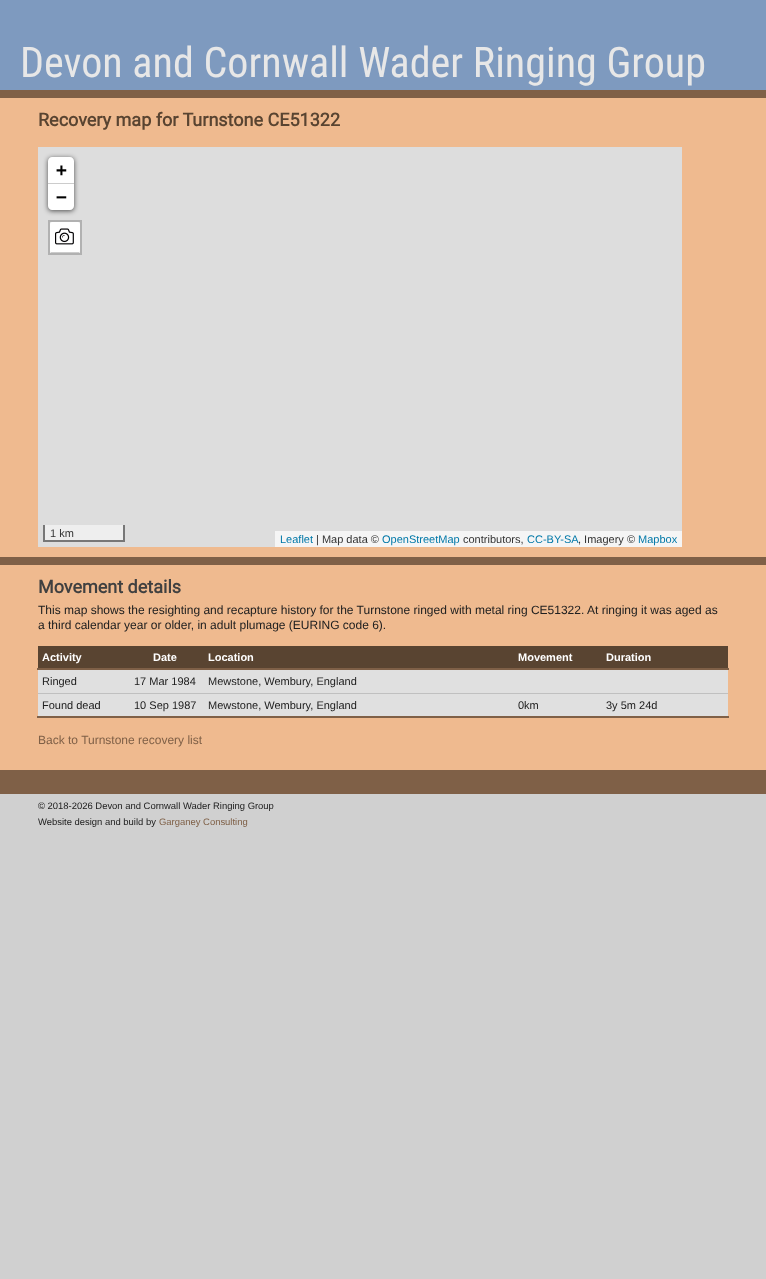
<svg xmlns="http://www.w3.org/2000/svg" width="766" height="1279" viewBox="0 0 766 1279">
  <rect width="100%" height="100%" fill="#d0d0d0"/>
  <path d="M0 0h766v90H0z" fill="#7e9abf"/>
  <path d="M0 90h766v8H0z" fill="#7f6047"/>
  <path d="M0 98h766v672H0z" fill="#efba8f"/>
  <path d="M0 557h766v8H0z" fill="#7f6047"/>
  <path d="M38 147h644v400H38z" fill="#ddd"/>
  <rect x="48" y="158" width="26" height="53" rx="4" fill="#000000a6" filter="blur(2.5px)"/>
  <path d="M52 157H70C72 157 74 159 74 161V184H48V161C48 159 50 157 52 157Z" fill="#fff"/>
  <path d="M48 183h26v1H48z" fill="#ccc"/>
  <path d="M48 184H74V206C74 208 72 210 70 210H52C50 210 48 208 48 206Z" fill="#fff"/>
  <path d="M49 221h32v33H49z" fill="none" stroke="#b1b1b1" stroke-width="2"/>
  <rect x="50" y="222" width="30" height="31" rx="2" fill="#fff"/>
  <image x="55" y="228" width="19" height="17" href="img/1.png"/>
  <path d="M51 252h28v1H51z" fill="#ccc"/>
  <path d="M45 525h78v15H45z" fill="#eee"/>
  <path d="M123 525h2v17H123z" fill="#777"/>
  <path d="M43 540h82v2H43z" fill="#777"/>
  <path d="M43 525h2v17H43z" fill="#777"/>
  <path d="M275 531h407v16H275z" fill="#f5f5f5"/>
  <path d="M38 646h690v22H38z" fill="#594431"/>
  <path d="M37 716h692v2H37z" fill="#7f6047"/>
  <path d="M38 670h690v23H38z" fill="#e0e0e0"/>
  <path d="M37 668h692v2H37z" fill="#7f6047"/>
  <path d="M38 694h690v22H38z" fill="#e0e0e0"/>
  <path d="M38 693h690v1H38z" fill="#c0c0c0"/>
  <path d="M0 770h766v24H0z" fill="#7f6047"/>
  <text x="20" y="77" font-family="Roboto Condensed" font-size="42.1" fill="#e7e7e7">Devon and Cornwall Wader Ringing Group</text>
  <text x="38" y="126" font-family="Roboto" font-size="18" font-weight="bold" fill="#594431">Recovery map for Turnstone CE51322</text>
  <g font-family="DejaVu Sans Mono" font-size="18" font-weight="bold" fill="#000">
    <text x="56" y="176">+</text>
    <text x="56" y="203">−</text>
  </g>
  <text x="50" y="537" font-family="Liberation Sans" font-size="11" fill="#333">1 km</text>
  <text x="280" y="543" font-family="Liberation Sans" font-size="11" fill="#0078a8">Leaflet</text>
  <text x="316" y="543" font-family="Liberation Sans" font-size="11" fill="#333">| Map data ©</text>
  <text x="382" y="543" font-family="Liberation Sans" font-size="11" fill="#0078a8">OpenStreetMap</text>
  <text x="463" y="543" font-family="Liberation Sans" font-size="11" fill="#333">contributors,</text>
  <text x="527" y="543" font-family="Liberation Sans" font-size="11" fill="#0078a8">CC-BY-SA</text>
  <text x="578" y="543" font-family="Liberation Sans" font-size="11" fill="#333">, Imagery ©</text>
  <text x="638" y="543" font-family="Liberation Sans" font-size="11" fill="#0078a8">Mapbox</text>
  <text x="38" y="593" font-family="Roboto" font-size="18" font-weight="bold" fill="#404040">Movement details</text>
  <g font-family="Liberation Sans" font-size="12" fill="#202020">
    <text x="38" y="614">This map shows the resighting and recapture history for the Turnstone ringed with metal ring CE51322. At ringing it was aged as</text>
    <text x="38" y="629">a third calendar year or older, in adult plumage (EURING code 6).</text>
  </g>
  <g font-family="Liberation Sans" font-size="11" font-weight="bold" fill="#fff">
    <text x="42" y="661">Activity</text>
    <text x="153" y="661">Date</text>
    <text x="208" y="661">Location</text>
    <text x="518" y="661">Movement</text>
    <text x="606" y="661">Duration</text>
  </g>
  <g font-family="Liberation Sans" font-size="11" fill="#202020">
    <text x="42" y="685">Ringed</text>
    <text x="134" y="685">17 Mar 1984</text>
    <text x="208" y="685">Mewstone, Wembury, England</text>
    <text x="42" y="709">Found dead</text>
    <text x="134" y="709">10 Sep 1987</text>
    <text x="208" y="709">Mewstone, Wembury, England</text>
    <text x="518" y="709">0km</text>
    <text x="606" y="709">3y 5m 24d</text>
  </g>
  <text x="38" y="744" font-family="Liberation Sans" font-size="12" fill="#7f6047">Back to Turnstone recovery list</text>
  <g font-family="Liberation Sans" font-size="9.45" fill="#202020">
    <text x="38" y="809">© 2018-2026 Devon and Cornwall Wader Ringing Group</text>
    <text x="38" y="825">Website design and build by</text>
  </g>
  <text x="159" y="825" font-family="Liberation Sans" font-size="9.45" fill="#7f6047">Garganey Consulting</text>
</svg>
